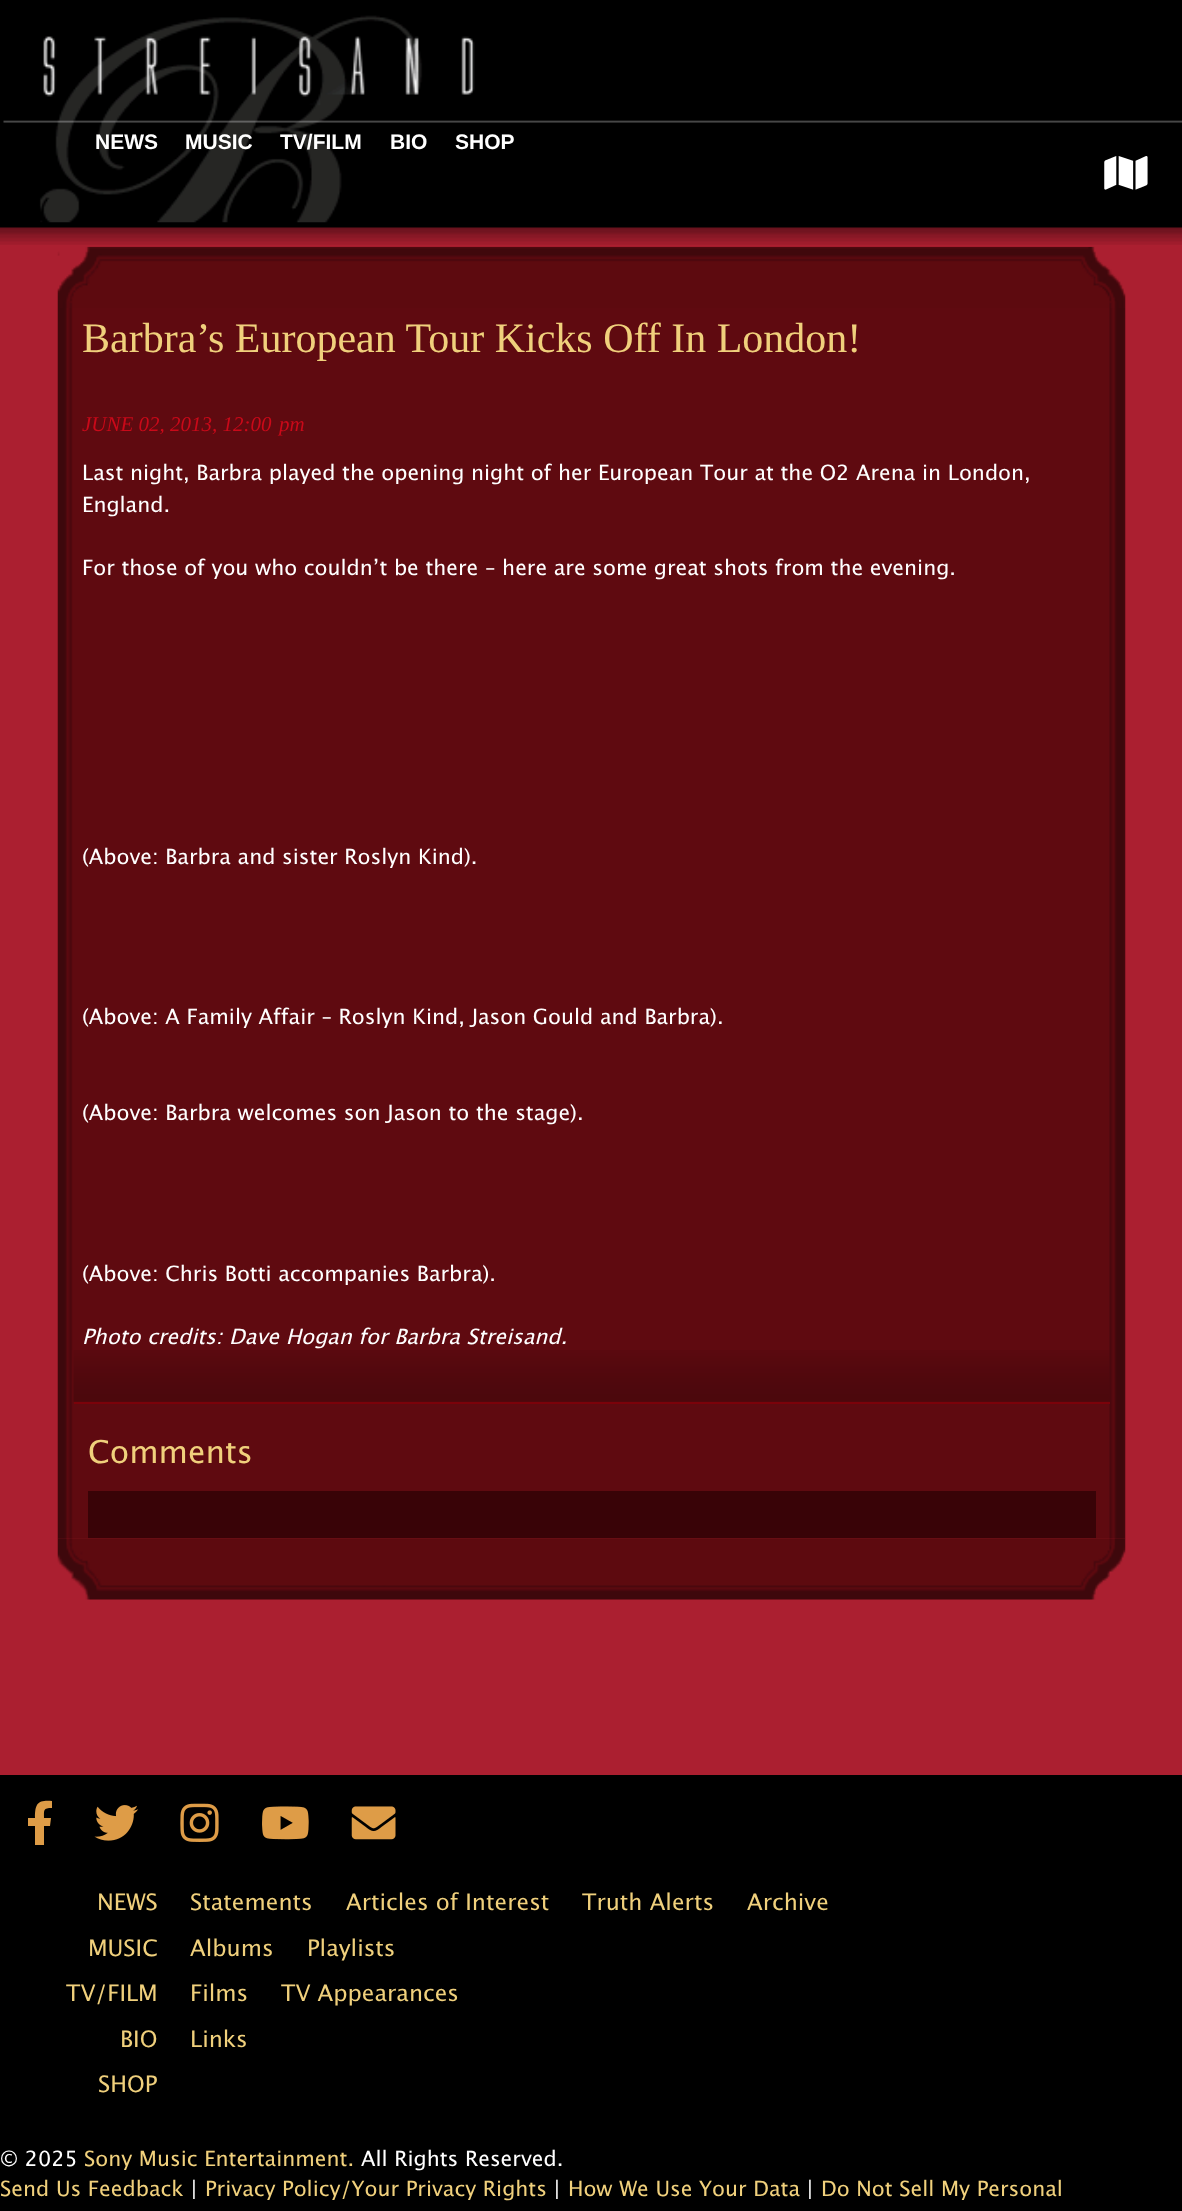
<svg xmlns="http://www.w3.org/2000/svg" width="1182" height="2211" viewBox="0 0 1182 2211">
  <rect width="100%" height="100%" fill="#ab1f30"/>
  <image x="0" y="0" width="1182" height="245" href="img/1.png"/>
  <image x="3" y="15" width="1179" height="208" href="img/2.png"/>
  <image x="1104" y="156" width="44" height="34" href="img/3.png"/>
  <image x="57" y="246" width="1069" height="62" href="img/4.png"/>
  <image x="57" y="1538" width="1069" height="62" href="img/5.png"/>
  <image x="57" y="308" width="1069" height="1231" href="img/6.png"/>
  <image x="73" y="1350" width="1037" height="52" href="img/7.png"/>
  <path d="M74 1402h1036v2H74z" fill="#7b020a"/>
  <path d="M88 1491h1008v47H88z" fill="#390307"/>
  <path d="M0 1775h1182v436H0z" fill="#000"/>
  <path d="M50 1826H44V1845H35V1826H28V1818H35C35 1803 38 1800 52 1801V1808C43 1808 44 1810 44 1818H51Z" fill="#de9c47"/>
  <image x="94" y="1805" width="45" height="36" href="img/8.png"/>
  <image x="180" y="1803" width="39" height="39" href="img/9.png"/>
  <image x="262" y="1806" width="47" height="34" href="img/10.png"/>
  <image x="351" y="1806" width="45" height="34" href="img/11.png"/>
  <g font-family="Liberation Sans" font-size="21" font-weight="bold" fill="#fff">
    <text x="95" y="149">NEWS</text>
    <text x="185" y="149">MUSIC</text>
    <text x="280" y="149">TV/FILM</text>
    <text x="390" y="149">BIO</text>
    <text x="455" y="149">SHOP</text>
  </g>
  <text x="82" y="352" font-family="Liberation Serif" font-size="42" fill="#f0d07c">Barbra’s European Tour Kicks Off In London!</text>
  <g font-family="Liberation Serif" font-size="21" font-style="italic" fill="#c90919">
    <text x="82" y="431">JUNE 02, 2013, 12:00</text>
    <text x="279" y="431">pm</text>
  </g>
  <g font-family="Lucida Grande" font-size="21" fill="#fff">
    <text x="82" y="480">Last night, Barbra played the opening night of her European Tour at the O2 Arena in London,</text>
    <text x="82" y="512">England.</text>
    <text x="82" y="575">For those of you who couldn’t be there – here are some great shots from the evening.</text>
    <text x="82" y="864">(Above: Barbra and sister Roslyn Kind).</text>
    <text x="82" y="1024">(Above: A Family Affair – Roslyn Kind, Jason Gould and Barbra).</text>
    <text x="82" y="1120">(Above: Barbra welcomes son Jason to the stage).</text>
    <text x="82" y="1281">(Above: Chris Botti accompanies Barbra).</text>
  </g>
  <text x="82" y="1344" font-family="Lucida Grande" font-size="21" font-style="italic" fill="#fff">Photo credits: Dave Hogan for Barbra Streisand.</text>
  <text x="88" y="1463" font-family="Lucida Grande" font-size="31.5" fill="#f0d07c">Comments</text>
  <g font-family="Lucida Grande" font-size="22.75" fill="#f0d07c">
    <text x="97" y="1910">NEWS</text>
    <text x="190" y="1910">Statements</text>
    <text x="346" y="1910">Articles of Interest</text>
    <text x="582" y="1910">Truth Alerts</text>
    <text x="747" y="1910">Archive</text>
    <text x="88" y="1956">MUSIC</text>
    <text x="190" y="1956">Albums</text>
    <text x="307" y="1956">Playlists</text>
    <text x="66" y="2001">TV/FILM</text>
    <text x="190" y="2001">Films</text>
    <text x="281" y="2001">TV Appearances</text>
    <text x="120" y="2047">BIO</text>
    <text x="190" y="2047">Links</text>
    <text x="98" y="2092">SHOP</text>
  </g>
  <text x="0" y="2166" font-family="Lucida Grande" font-size="21" fill="#fff">© 2025</text>
  <text x="84" y="2166" font-family="Lucida Grande" font-size="21" fill="#f0d07c">Sony Music Entertainment.</text>
  <text x="361" y="2166" font-family="Lucida Grande" font-size="21" fill="#fff">All Rights Reserved.</text>
  <text x="0" y="2196" font-family="Lucida Grande" font-size="21" fill="#f0d07c">Send Us Feedback</text>
  <text x="190" y="2196" font-family="Lucida Grande" font-size="21" fill="#fff">|</text>
  <text x="205" y="2196" font-family="Lucida Grande" font-size="21" fill="#f0d07c">Privacy Policy/Your Privacy Rights</text>
  <text x="553" y="2196" font-family="Lucida Grande" font-size="21" fill="#fff">|</text>
  <text x="568" y="2196" font-family="Lucida Grande" font-size="21" fill="#f0d07c">How We Use Your Data</text>
  <text x="806" y="2196" font-family="Lucida Grande" font-size="21" fill="#fff">|</text>
  <text x="821" y="2196" font-family="Lucida Grande" font-size="21" fill="#f0d07c">Do Not Sell My Personal</text>
</svg>
